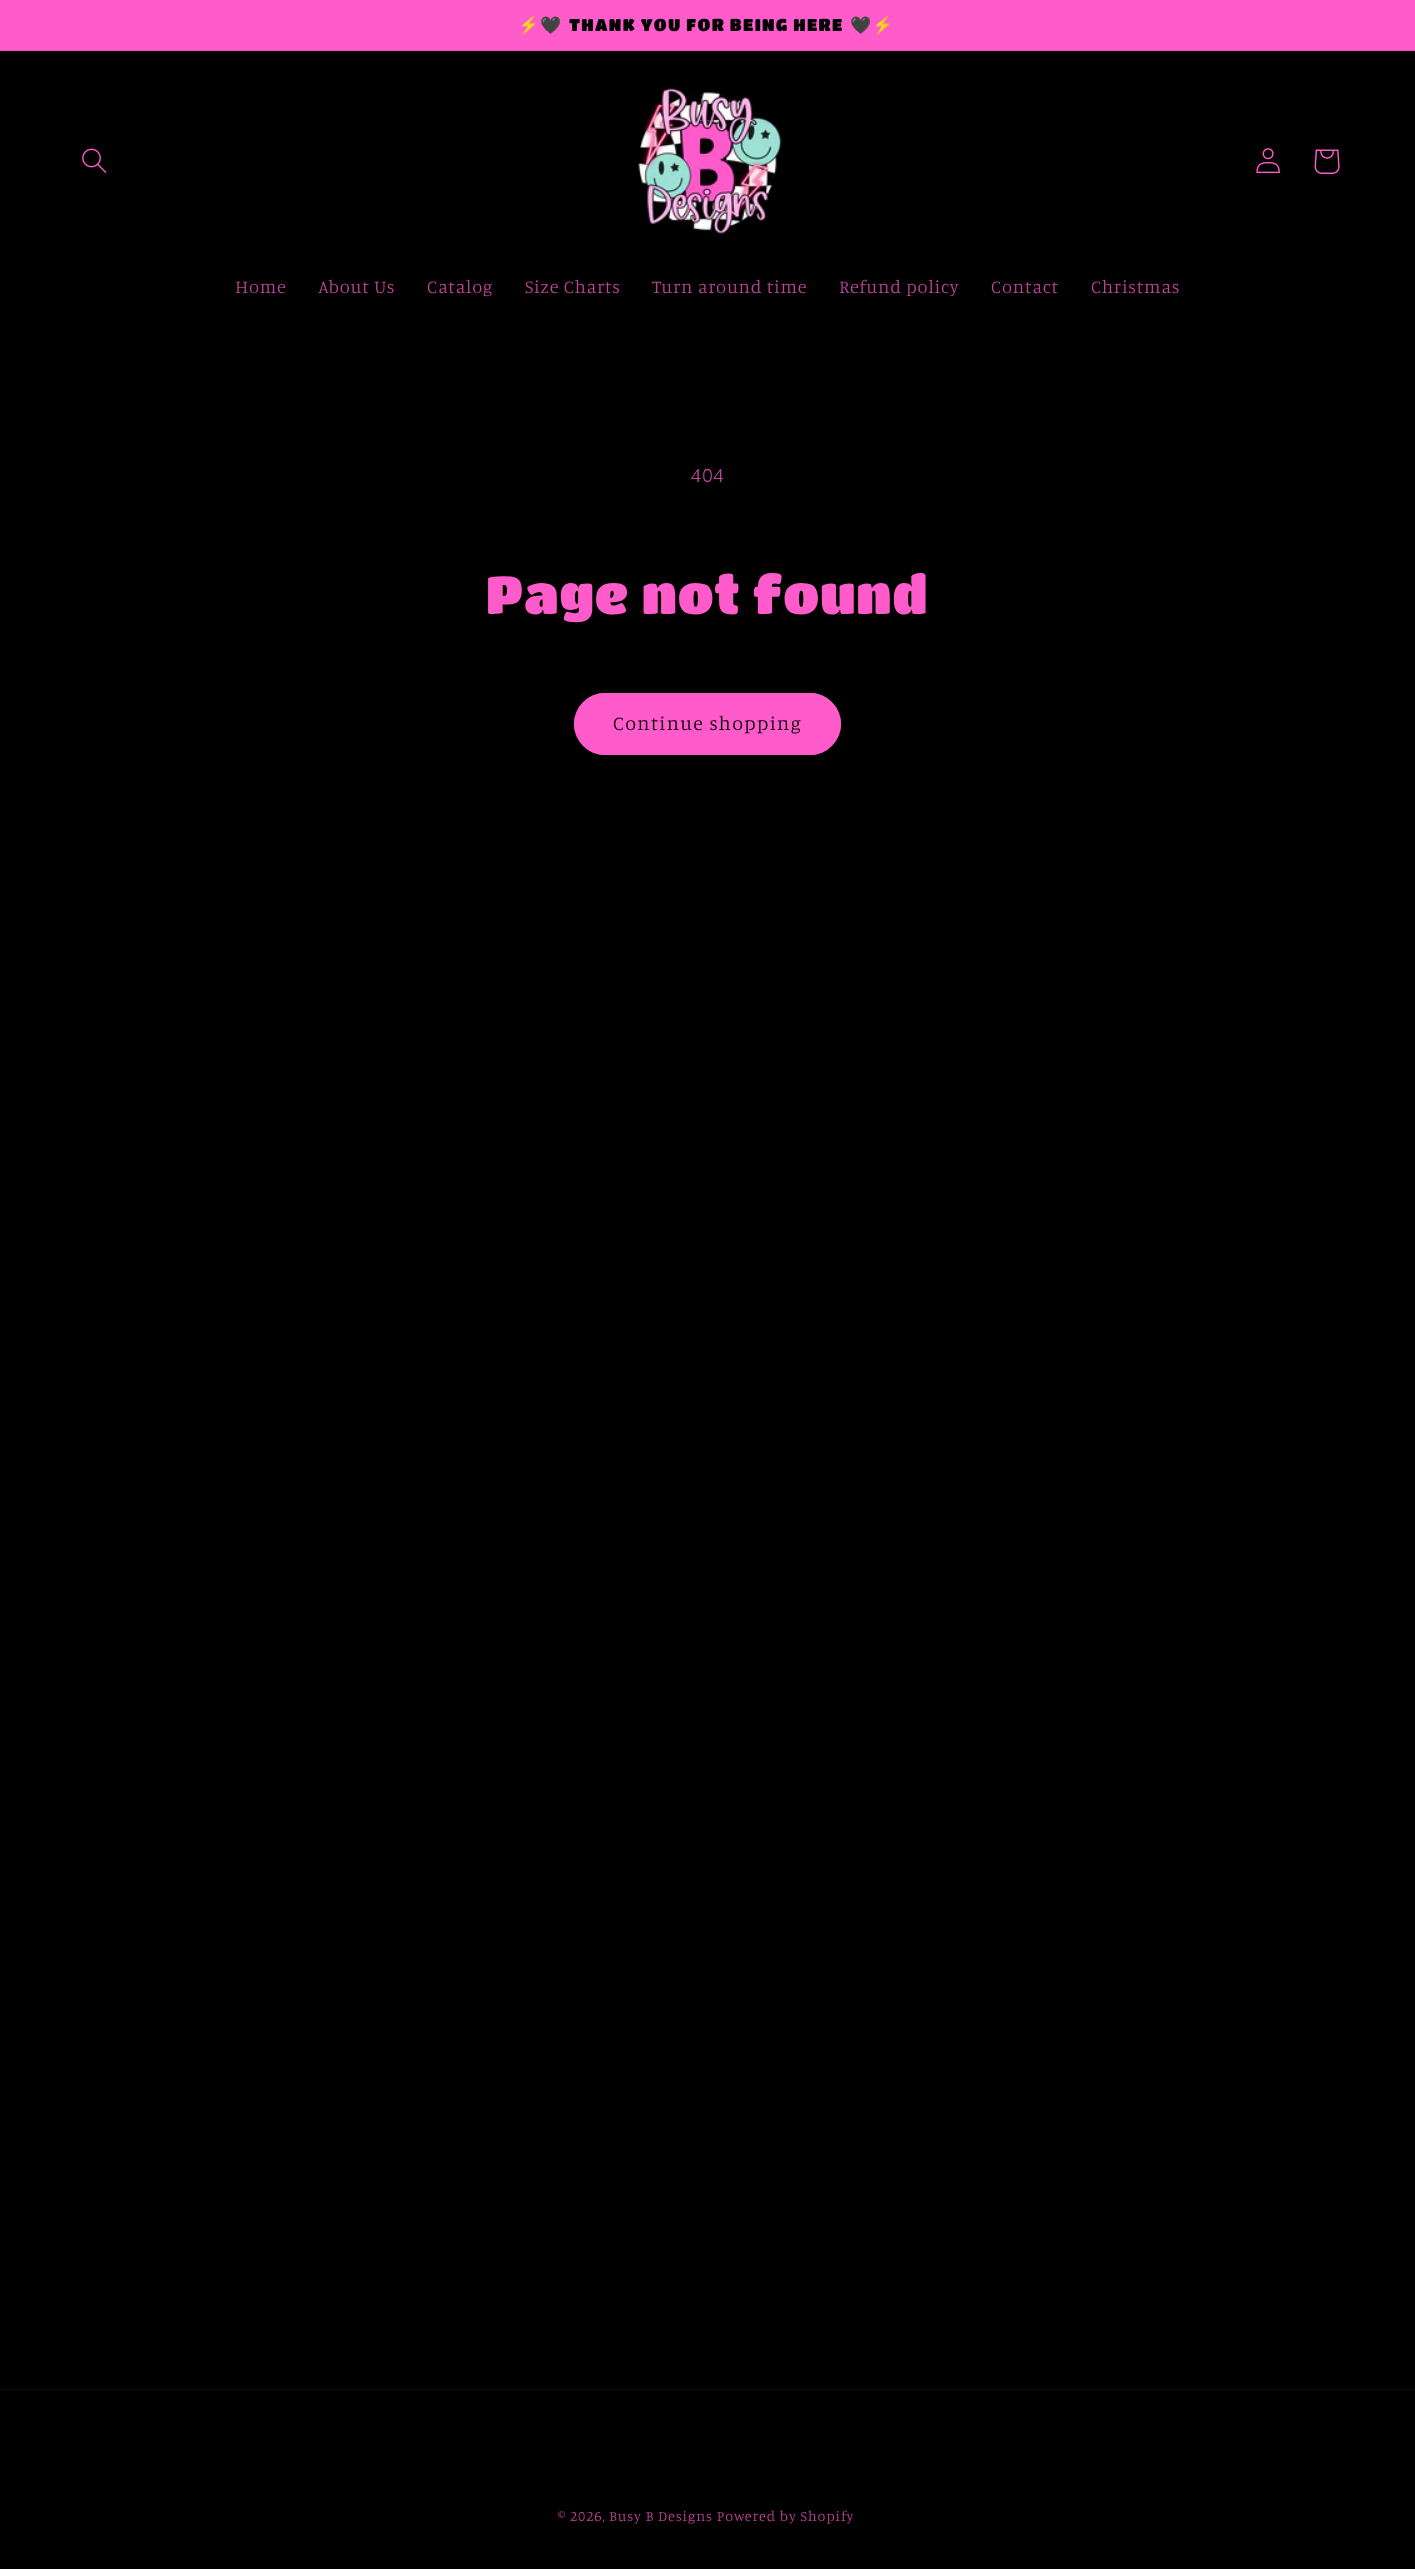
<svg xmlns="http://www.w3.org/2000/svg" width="1415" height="2569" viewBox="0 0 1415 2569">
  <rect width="100%" height="100%" fill="#000"/>
  <path d="M0 0h1415v50H0z" fill="#ff5bcb"/>
  <path d="M0 50h1415v1H0z" fill="#eb54bb"/>
  <image x="82" y="148" width="25" height="25" href="img/1.png"/>
  <image x="638" y="88" width="144" height="146" href="img/2.png"/>
  <image x="1256" y="148" width="24" height="26" href="img/3.png"/>
  <image x="1314" y="149" width="26" height="25" href="img/4.png"/>
  <rect x="574" y="693" width="267" height="62" rx="31" fill="#ff5bcb"/>
  <rect x="574.5" y="693.5" width="266" height="61" rx="30.5" fill="none" stroke="#ff5bcb"/>
  <path d="M0 2389h1415v1H0z" fill="#140710"/>
  <text x="518" y="31" font-family="Noto Color Emoji" font-size="17" letter-spacing="1.3" fill="#000">⚡️🖤</text>
  <text x="569" y="31" word-spacing="-0.5" font-family="Titan One" font-size="17" letter-spacing="1.3" fill="#000">THANK YOU FOR BEING HERE</text>
  <text x="850" y="31" font-family="Noto Color Emoji" font-size="17" letter-spacing="1.3" fill="#000">🖤⚡️</text>
  <g font-family="Manuale" font-size="18.4" font-weight="300" letter-spacing="0.75" fill="#bf4498">
    <text x="235" y="293">Home</text>
    <text x="318" y="293">About Us</text>
    <text x="427" y="293">Catalog</text>
    <text x="525" y="293">Size Charts</text>
    <text x="652" y="293">Turn around time</text>
    <text x="839" y="293">Refund policy</text>
    <text x="991" y="293">Contact</text>
    <text x="1091" y="293">Christmas</text>
  </g>
  <text x="691" y="482" font-family="Manuale" font-size="21" font-weight="300" letter-spacing="0.75" fill="#bf4498">404</text>
  <text x="486" y="614" font-family="Titan One" font-size="52.5" letter-spacing="0.75" fill="#ff5bcb">Page not found</text>
  <text x="613" y="730" font-family="Manuale" font-size="19.75" font-weight="300" letter-spacing="1.3" fill="#000">Continue shopping</text>
  <text x="558" y="2521" font-family="Manuale" font-size="14.4" font-weight="300" letter-spacing="0.9" fill="#bf4498">© 2026, Busy B Designs Powered by Shopify</text>
</svg>
